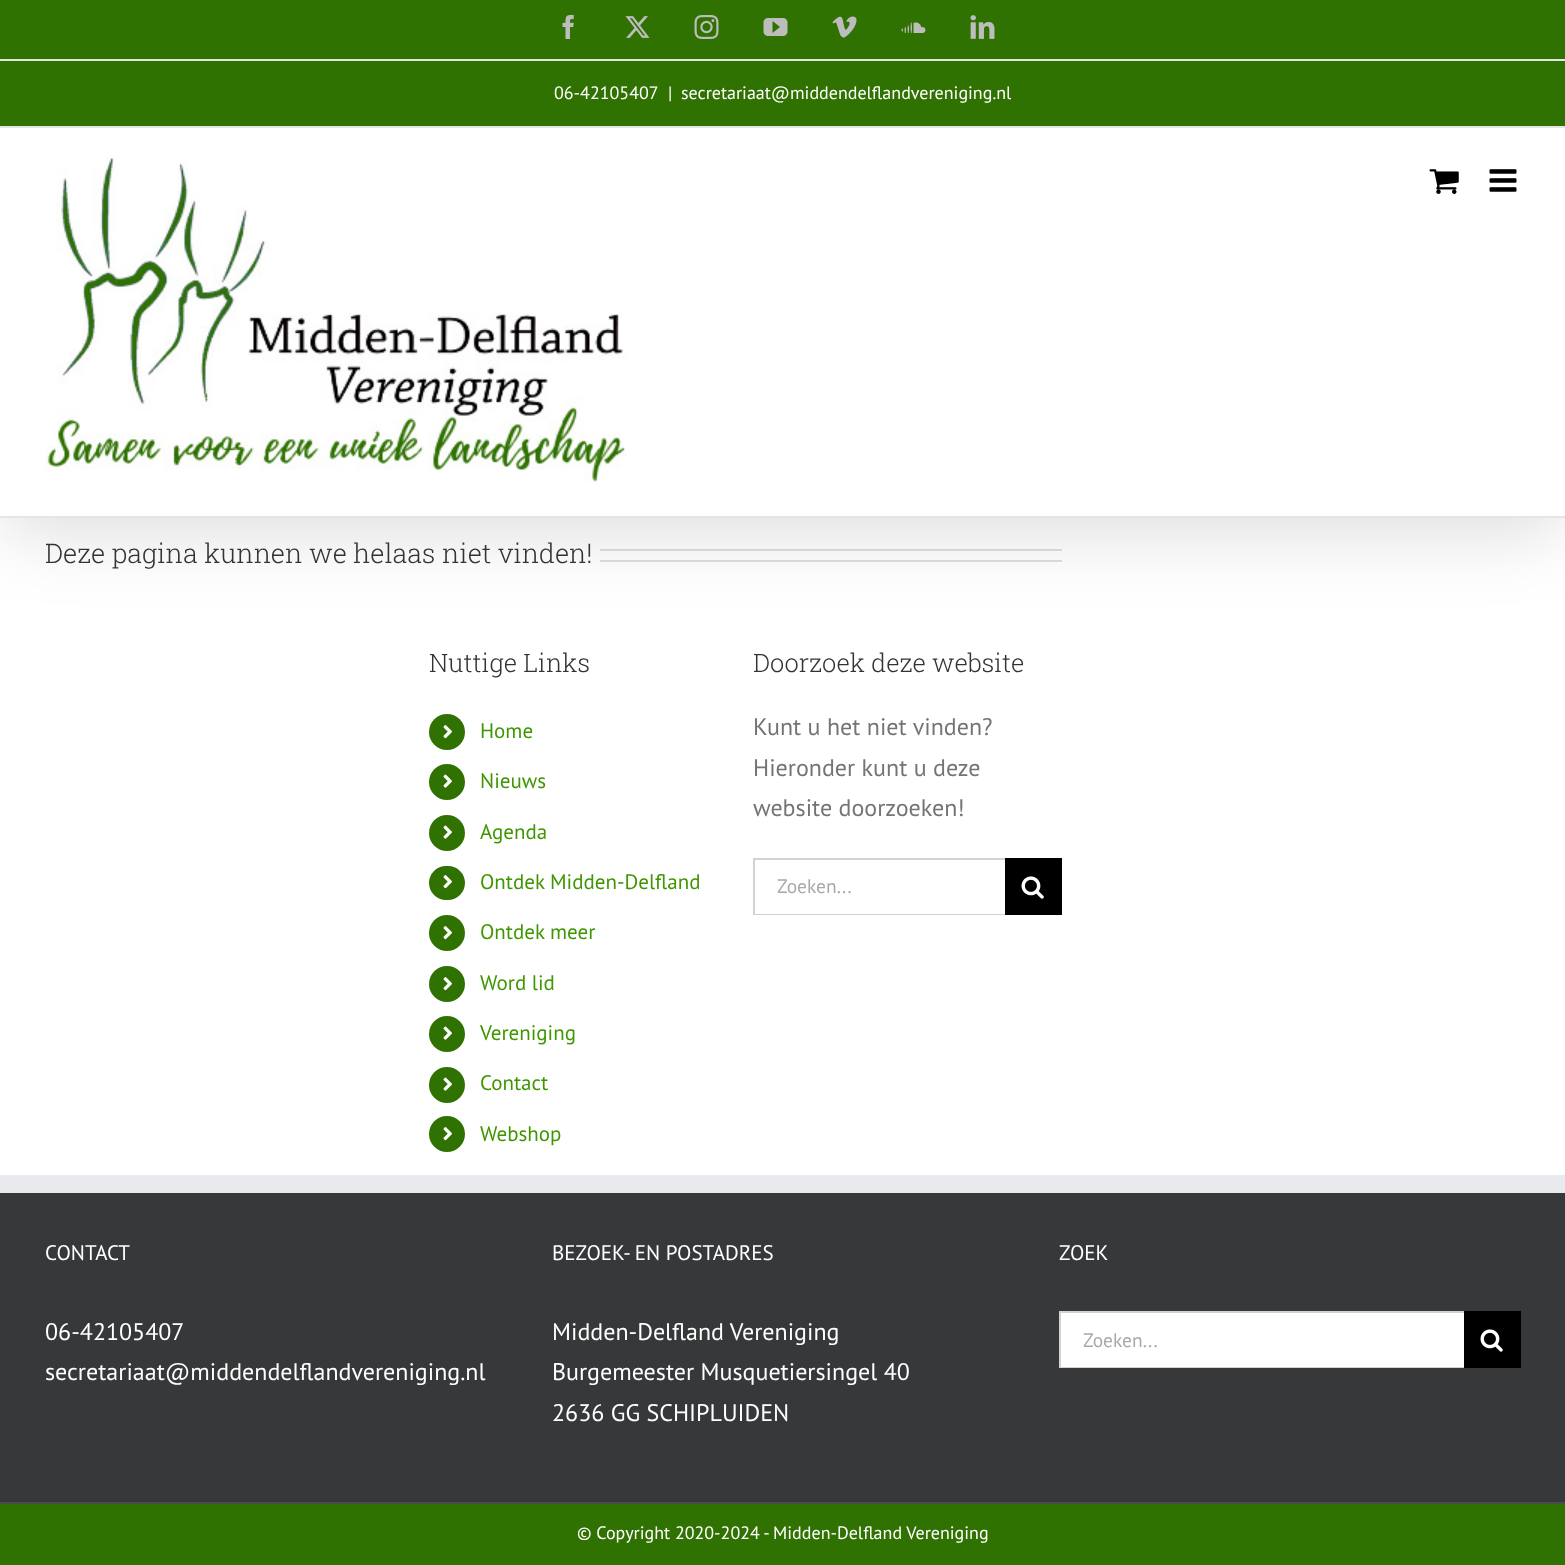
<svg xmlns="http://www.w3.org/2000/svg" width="1565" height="1565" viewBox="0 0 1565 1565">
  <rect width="100%" height="100%" fill="#fff"/>
  <path d="M600 549h462v2H600z" fill="#e0dede"/>
  <path d="M600 560h462v2H600z" fill="#e0dede"/>
  <path d="M3 18h1560v512H3z" fill="#00000024" filter="blur(37.5px)"/>
  <path d="M0 0h1565v126H0z" fill="#307201"/>
  <path d="M0 126h1565v2H0z" fill="#e5e5e5"/>
  <path d="M0 59h1565v2H0z" fill="#e5e5e5"/>
  <image x="562" y="15" width="12" height="24" href="img/1.png"/>
  <image x="625" y="16" width="25" height="22" href="img/2.png"/>
  <image x="694" y="15" width="25" height="24" href="img/3.png"/>
  <image x="763" y="18" width="25" height="18" href="img/4.png"/>
  <image x="832" y="16" width="25" height="22" href="img/5.png"/>
  <image x="901" y="22" width="25" height="11" href="img/6.png"/>
  <image x="970" y="15" width="25" height="24" href="img/7.png"/>
  <path d="M0 128h1565v388H0z" fill="#fff"/>
  <path d="M0 516h1565v2H0z" fill="#e5e5e5"/>
  <image x="45" y="157" width="582" height="325" href="img/8.png"/>
  <image x="1429" y="169" width="30" height="25" href="img/9.png"/>
  <image x="1489" y="169" width="28" height="23" href="img/10.png"/>
  <circle cx="447" cy="732" r="18" fill="#307201"/>
  <image x="443" y="725" width="9" height="14" href="img/11.png"/>
  <circle cx="447" cy="782" r="18" fill="#307201"/>
  <image x="443" y="774" width="9" height="14" href="img/12.png"/>
  <circle cx="447" cy="833" r="18" fill="#307201"/>
  <image x="443" y="825" width="9" height="14" href="img/12.png"/>
  <rect x="429" y="866" width="36" height="34" rx="17" fill="#307201"/>
  <image x="443" y="875" width="9" height="14" href="img/11.png"/>
  <circle cx="447" cy="933" r="18" fill="#307201"/>
  <image x="443" y="926" width="9" height="14" href="img/11.png"/>
  <circle cx="447" cy="984" r="18" fill="#307201"/>
  <image x="443" y="977" width="9" height="14" href="img/11.png"/>
  <circle cx="447" cy="1034" r="18" fill="#307201"/>
  <image x="443" y="1026" width="9" height="14" href="img/12.png"/>
  <circle cx="447" cy="1085" r="18" fill="#307201"/>
  <image x="443" y="1077" width="9" height="14" href="img/12.png"/>
  <circle cx="447" cy="1134" r="18" fill="#307201"/>
  <image x="443" y="1127" width="9" height="14" href="img/11.png"/>
  <path d="M753 858h252v2H753z" fill="#d2d2d2"/>
  <path d="M753 914h252v1H753z" fill="#d2d2d2"/>
  <path d="M753 858h2v57H753z" fill="#d2d2d2"/>
  <path d="M1005 858h57v57H1005z" fill="#000"/>
  <image x="1021" y="876" width="23" height="23" href="img/13.png"/>
  <path d="M0 1193h1565v309H0z" fill="#363839"/>
  <path d="M0 1175h1565v18H0z" fill="#e9eaee"/>
  <path d="M1061 1313h403v54H1061z" fill="#fff"/>
  <path d="M1059 1311h405v2H1059z" fill="#d2d2d2"/>
  <path d="M1059 1367h405v1H1059z" fill="#d2d2d2"/>
  <path d="M1059 1311h2v57H1059z" fill="#d2d2d2"/>
  <path d="M1464 1311h57v57H1464z" fill="#000"/>
  <image x="1480" y="1329" width="23" height="23" href="img/13.png"/>
  <path d="M0 1504h1565v61H0z" fill="#307201"/>
  <path d="M0 1502h1565v2H0z" fill="#4b4c4d"/>
  <g font-family="PT Sans" font-size="18" fill="#fff">
    <text x="554" y="99">06-42105407</text>
    <text x="668" y="99">|</text>
    <text x="681" y="99">secretariaat@middendelflandvereniging.nl</text>
  </g>
  <text x="45" y="563" font-family="Roboto Slab" font-size="27" font-weight="300" fill="#333">Deze pagina kunnen we helaas niet vinden!</text>
  <text x="429" y="672" font-family="Roboto Slab" font-size="25.5" font-weight="300" fill="#333">Nuttige Links</text>
  <g font-family="PT Sans" font-size="21" fill="#3f9601">
    <text x="480" y="738">Home</text>
    <text x="480" y="788">Nieuws</text>
    <text x="480" y="839">Agenda</text>
    <text x="480" y="889">Ontdek Midden-Delfland</text>
    <text x="480" y="939">Ontdek meer</text>
    <text x="480" y="990">Word lid</text>
    <text x="480" y="1040">Vereniging</text>
    <text x="480" y="1090">Contact</text>
    <text x="480" y="1141">Webshop</text>
  </g>
  <text x="753" y="672" font-family="Roboto Slab" font-size="25.5" font-weight="300" fill="#333">Doorzoek deze website</text>
  <g font-family="PT Sans" font-size="24" fill="#747474">
    <text x="753" y="735">Kunt u het niet vinden?</text>
    <text x="753" y="776">Hieronder kunt u deze</text>
    <text x="753" y="816">website doorzoeken!</text>
  </g>
  <text x="777" y="893" font-family="PT Sans" font-size="19.5" fill="#aaa9a9">Zoeken...</text>
  <text x="45" y="1260" font-family="PT Sans" font-size="21" fill="#fff">CONTACT</text>
  <g font-family="PT Sans" font-size="24" fill="#fff">
    <text x="45" y="1340">06-42105407</text>
    <text x="45" y="1380">secretariaat@middendelflandvereniging.nl</text>
  </g>
  <text x="552" y="1260" font-family="PT Sans" font-size="21" fill="#fff">BEZOEK- EN POSTADRES</text>
  <g font-family="PT Sans" font-size="24" fill="#fff">
    <text x="552" y="1340">Midden-Delfland Vereniging</text>
    <text x="552" y="1380">Burgemeester Musquetiersingel 40</text>
    <text x="552" y="1421">2636 GG SCHIPLUIDEN</text>
  </g>
  <text x="1059" y="1260" font-family="PT Sans" font-size="21" fill="#fff">ZOEK</text>
  <text x="1083" y="1347" font-family="PT Sans" font-size="19.5" fill="#aaa9a9">Zoeken...</text>
  <text x="577" y="1539" font-family="PT Sans" font-size="18" fill="#fff">© Copyright 2020-2024 - Midden-Delfland Vereniging</text>
</svg>
